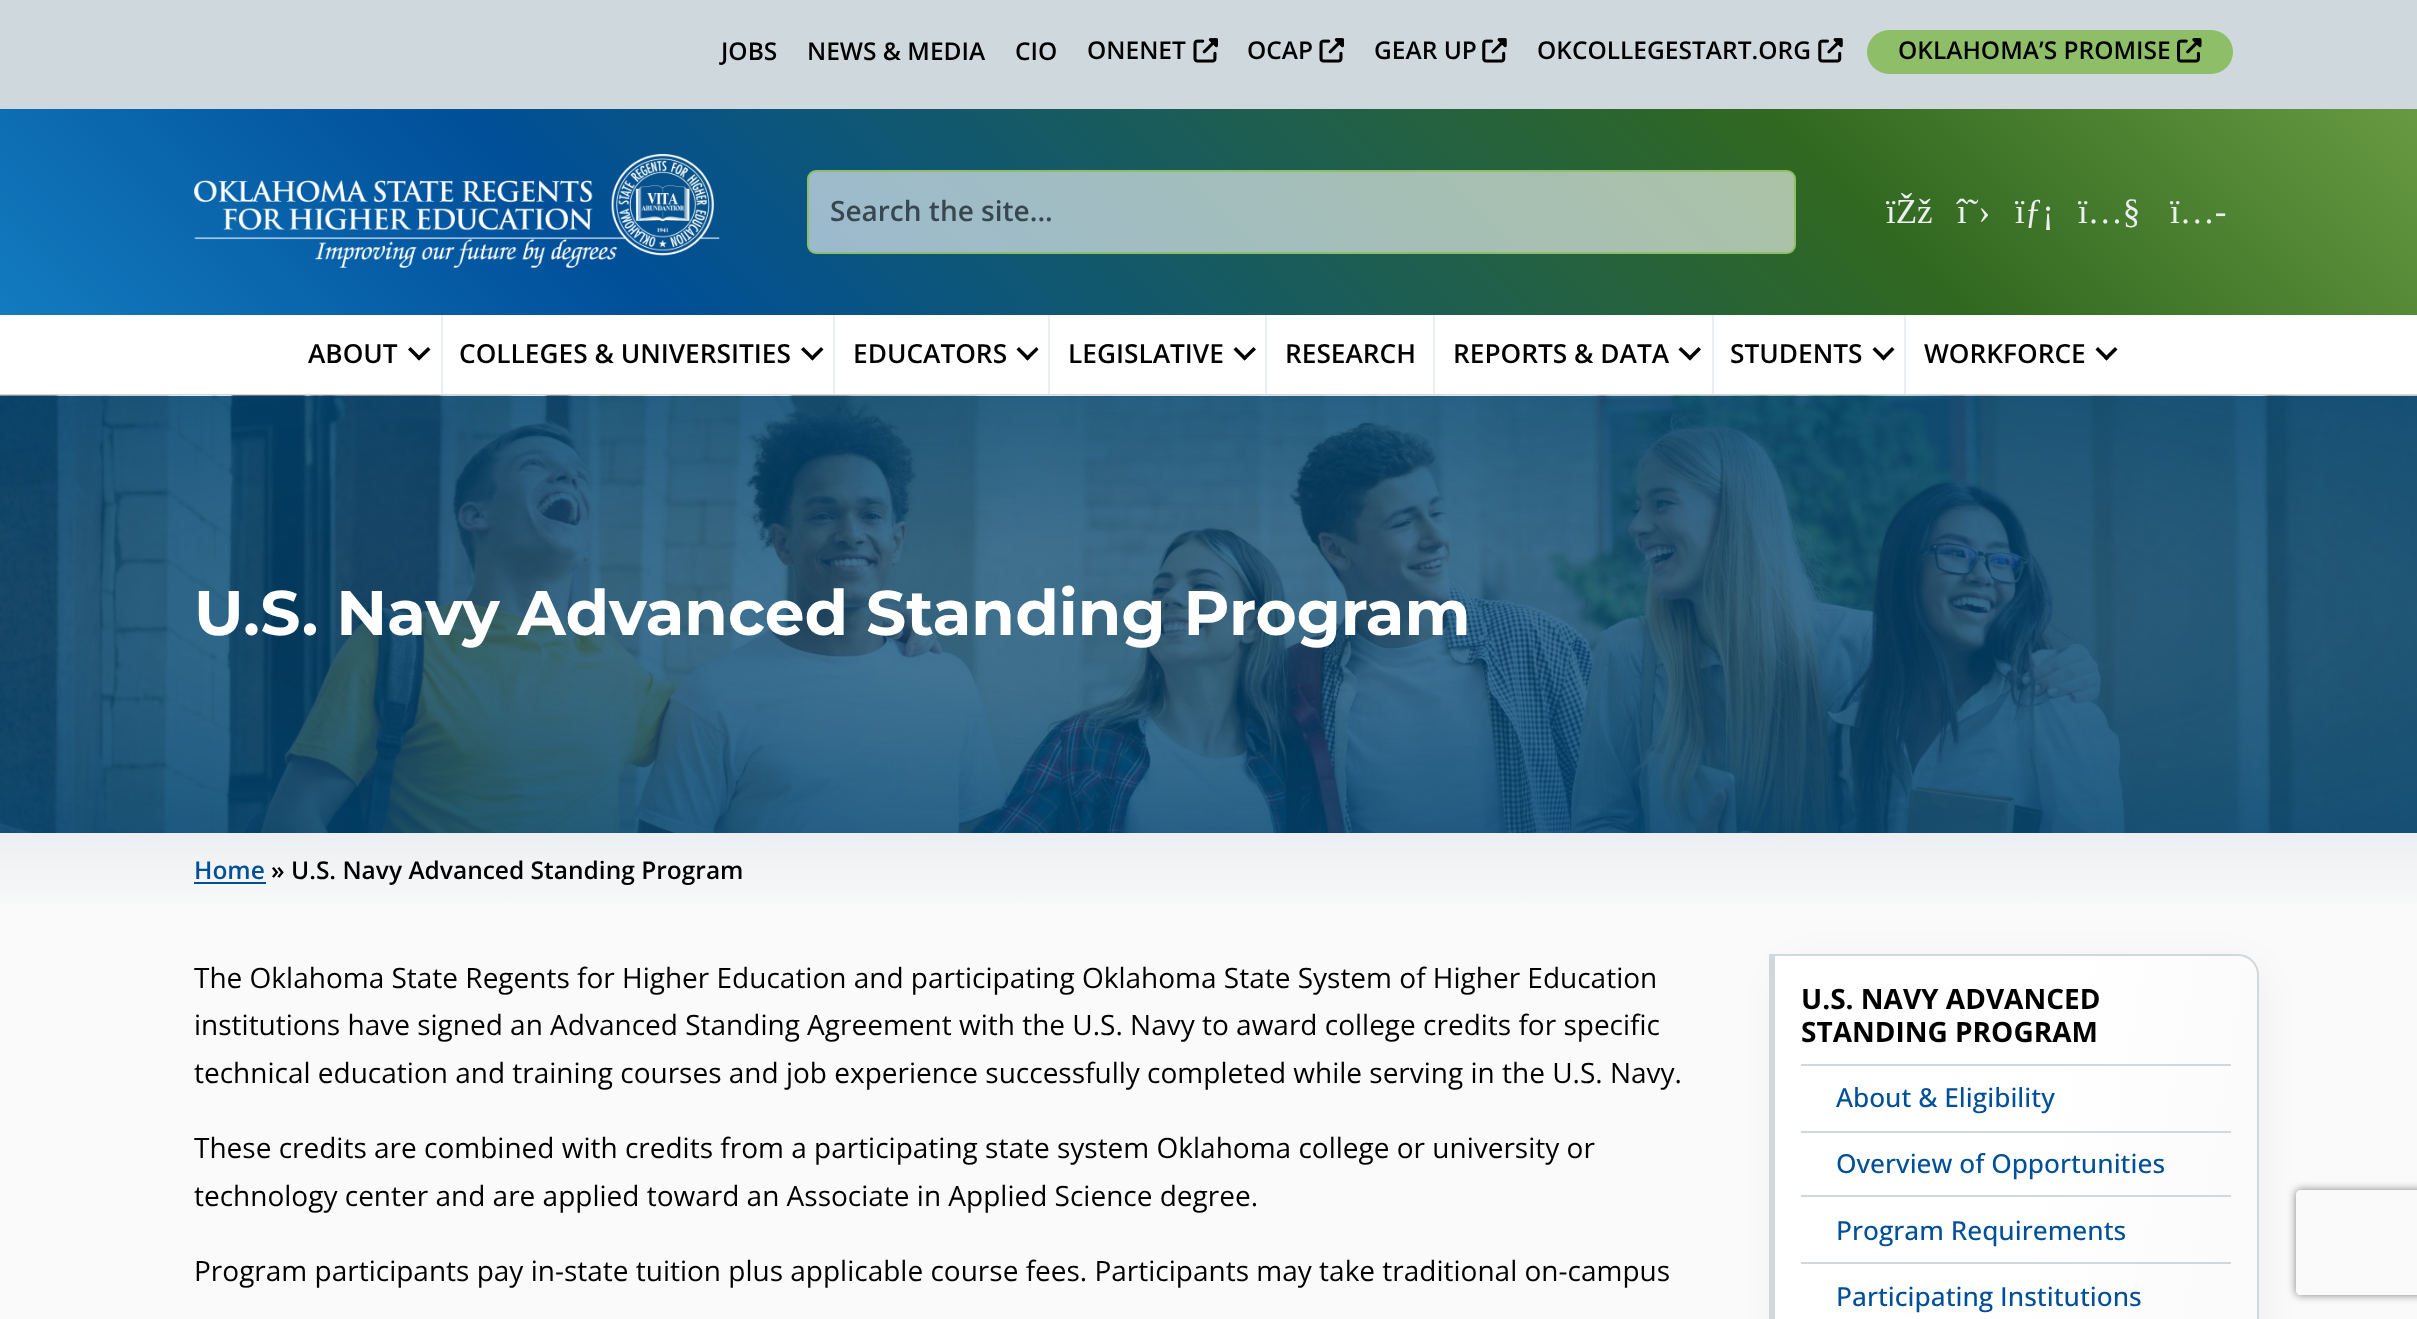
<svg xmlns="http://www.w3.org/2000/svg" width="2417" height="1319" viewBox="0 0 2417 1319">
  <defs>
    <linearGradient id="g1" gradientUnits="userSpaceOnUse" x1="553" y1="868" x2="1866" y2="-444"><stop offset="0" stop-color="#137bbf"/><stop offset="0.25" stop-color="#004f99"/><stop offset="0.75" stop-color="#316820"/><stop offset="1" stop-color="#679a41"/></linearGradient>
    <linearGradient id="g2" gradientUnits="userSpaceOnUse" x1="1209" y1="833" x2="1209" y2="919"><stop offset="0" stop-color="#eceff1"/><stop offset="1" stop-color="#fafafa"/></linearGradient>
    <linearGradient id="g3" gradientUnits="userSpaceOnUse" x1="1737" y1="1170" x2="2295" y2="1269"><stop offset="0.5" stop-color="#fff"/><stop offset="1" stop-color="#fafafa"/></linearGradient>
    <clipPath id="clip1"><path d="M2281 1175H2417V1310H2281ZM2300 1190H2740C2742 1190 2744 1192 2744 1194V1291C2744 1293 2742 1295 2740 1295H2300C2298 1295 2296 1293 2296 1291V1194C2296 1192 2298 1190 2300 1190Z" clip-rule="evenodd"/></clipPath>
  </defs>
  <rect width="100%" height="100%" fill="#fafafa"/>
  <path d="M0 0h2417v109H0z" fill="#cfd8dc"/>
  <image x="1193" y="38" width="25" height="25" href="img/1.png"/>
  <image x="1319" y="38" width="25" height="25" href="img/1.png"/>
  <image x="1482" y="38" width="25" height="25" href="img/2.png"/>
  <image x="1818" y="38" width="25" height="25" href="img/2.png"/>
  <rect x="1867" y="30" width="366" height="44" rx="22" fill="#8ebf68"/>
  <image x="2177" y="38" width="25" height="25" href="img/3.png"/>
  <path d="M0 109h2417v206H0z" fill="url(#g1)"/>
  <image x="194" y="154" width="526" height="114" href="img/4.png"/>
  <rect x="808" y="171" width="987" height="82" rx="8" fill="#ffffff99" stroke="#8ebf68" stroke-width="2"/>
  <path d="M0 315h2417v79H0z" fill="#fff"/>
  <path d="M0 394h2417v2H0z" fill="#cfd8dc"/>
  <path d="M428 347L430.5 349.5L419 360.5L416.5 358Z" fill="#000"/>
  <path d="M410.5 347L421.5 358L419 360.5L408 349.5Z" fill="#000"/>
  <path d="M441 315h2v79H441z" fill="#eceff1"/>
  <path d="M821 347L823.5 349.5L812.5 360.5L810 358Z" fill="#000"/>
  <path d="M803.5 347L814.5 358L812.5 360.5L801 349.5Z" fill="#000"/>
  <path d="M833 315h2v79H833z" fill="#eceff1"/>
  <path d="M1036.5 347L1038.5 349.5L1027.5 360.5L1025 358Z" fill="#000"/>
  <path d="M1019 347L1030 358L1027.5 360.5L1016.5 349.5Z" fill="#000"/>
  <path d="M1048 315h2v79H1048z" fill="#eceff1"/>
  <path d="M1253.5 347L1256 349.5L1244.5 360.5L1242.5 358Z" fill="#000"/>
  <path d="M1236 347L1247 358L1244.5 360.5L1233.5 349.5Z" fill="#000"/>
  <path d="M1265 315h2v79H1265z" fill="#eceff1"/>
  <path d="M1433 315h2v79H1433z" fill="#eceff1"/>
  <path d="M1698.5 347L1701 349.5L1690 360.5L1687.5 358Z" fill="#000"/>
  <path d="M1681 347L1692.5 358L1690 360.5L1678.5 349.5Z" fill="#000"/>
  <path d="M1712 315h2v79H1712z" fill="#eceff1"/>
  <path d="M1892 347L1894.5 349.5L1883.5 360.5L1881 358Z" fill="#000"/>
  <path d="M1875 347L1886 358L1883.5 360.5L1872.5 349.5Z" fill="#000"/>
  <path d="M1904 315h2v79H1904z" fill="#eceff1"/>
  <path d="M2115 347L2117.5 349.5L2106.5 360.5L2104 358Z" fill="#000"/>
  <path d="M2098 347L2109 358L2106.5 360.5L2095.5 349.5Z" fill="#000"/>
  <image x="0" y="395" width="2417" height="438" href="img/5.png"/>
  <path d="M0 833h2417v71H0z" fill="url(#g2)"/>
  <path d="M194 882h72v2H194z" fill="#004f99"/>
  <rect x="1775" y="959" width="490" height="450" rx="37" fill="#0000000a" filter="blur(17.5px)"/>
  <path d="M1775 956H2239C2249.5 956 2258 964.5 2258 975V1319C2258 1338.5 2242.5 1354 2223 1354H1775Z" fill="url(#g3)"/>
  <path d="M1770 955H2238C2249 955 2258 964 2258 975V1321C2258 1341 2242 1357 2222 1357H1770Z" fill="none" stroke="#cfd8dc" stroke-width="2"/>
  <path d="M1771 954h4v365H1771z" fill="#cfd8dc"/>
  <path d="M1801 1064h430v2H1801z" fill="#cfd8dc"/>
  <path d="M1801 1131h430v2H1801z" fill="#cfd8dc"/>
  <path d="M1801 1195h430v2H1801z" fill="#cfd8dc"/>
  <path d="M1801 1262h430v2H1801z" fill="#cfd8dc"/>
  <g clip-path="url(#clip1)">
    <rect x="2296" y="1190" width="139" height="105" rx="4" fill="#808080" filter="blur(4.5px)"/>
  </g>
  <g font-family="Open Sans" font-size="24.5" font-weight="600" fill="#000">
    <text x="721" y="60">JOBS</text>
    <text x="807" y="60">NEWS &amp; MEDIA</text>
    <text x="1015" y="60">CIO</text>
    <text x="1087" y="59">ONENET</text>
    <text x="1247" y="59">OCAP</text>
    <text x="1374" y="59">GEAR UP</text>
    <text x="1537" y="59">OKCOLLEGESTART.ORG</text>
    <text x="1898" y="59">OKLAHOMA’S PROMISE</text>
  </g>
  <text x="830" y="221" font-family="Open Sans" font-size="28" font-weight="600" fill="#37474f">Search the site...</text>
  <g font-family="Liberation Serif" font-size="35" fill="#eceff1">
    <text x="1886" y="223">ïŽž</text>
    <text x="1957" y="223">î˜›</text>
    <text x="2015" y="223">ïƒ¡</text>
    <text x="2078" y="223">ï…§</text>
    <text x="2170" y="223">ï…-</text>
  </g>
  <g font-family="Open Sans" font-size="26.25" font-weight="600" fill="#000">
    <text x="308" y="363">ABOUT</text>
    <text x="459" y="363">COLLEGES &amp; UNIVERSITIES</text>
    <text x="853" y="363">EDUCATORS</text>
    <text x="1068" y="363">LEGISLATIVE</text>
    <text x="1285" y="363">RESEARCH</text>
    <text x="1453" y="363">REPORTS &amp; DATA</text>
    <text x="1730" y="363">STUDENTS</text>
    <text x="1924" y="363">WORKFORCE</text>
  </g>
  <text x="194" y="635" font-family="Montserrat" font-size="63" font-weight="bold" fill="#fff">U.S. Navy Advanced Standing Program</text>
  <text x="194" y="879" font-family="Open Sans" font-size="24.5" font-weight="600" fill="#004f99">Home</text>
  <text x="271" y="879" font-family="Open Sans" font-size="24.5" font-weight="600" fill="#000">» U.S. Navy Advanced Standing Program</text>
  <g font-family="Open Sans" font-size="28" fill="#000">
    <text x="194" y="988">The Oklahoma State Regents for Higher Education and participating Oklahoma State System of Higher Education</text>
    <text x="194" y="1035">institutions have signed an Advanced Standing Agreement with the U.S. Navy to award college credits for specific</text>
    <text x="194" y="1083">technical education and training courses and job experience successfully completed while serving in the U.S. Navy.</text>
    <text x="194" y="1158">These credits are combined with credits from a participating state system Oklahoma college or university or</text>
    <text x="194" y="1206">technology center and are applied toward an Associate in Applied Science degree.</text>
    <text x="194" y="1281">Program participants pay in-state tuition plus applicable course fees. Participants may take traditional on-campus</text>
  </g>
  <g font-family="Open Sans" font-size="28" font-weight="bold" fill="#000">
    <text x="1801" y="1009">U.S. NAVY ADVANCED</text>
    <text x="1801" y="1042">STANDING PROGRAM</text>
  </g>
  <g font-family="Open Sans" font-size="26.25" font-weight="500" fill="#004f99">
    <text x="1836" y="1107">About &amp; Eligibility</text>
    <text x="1836" y="1173">Overview of Opportunities</text>
    <text x="1836" y="1240">Program Requirements</text>
    <text x="1836" y="1306">Participating Institutions</text>
  </g>
</svg>
